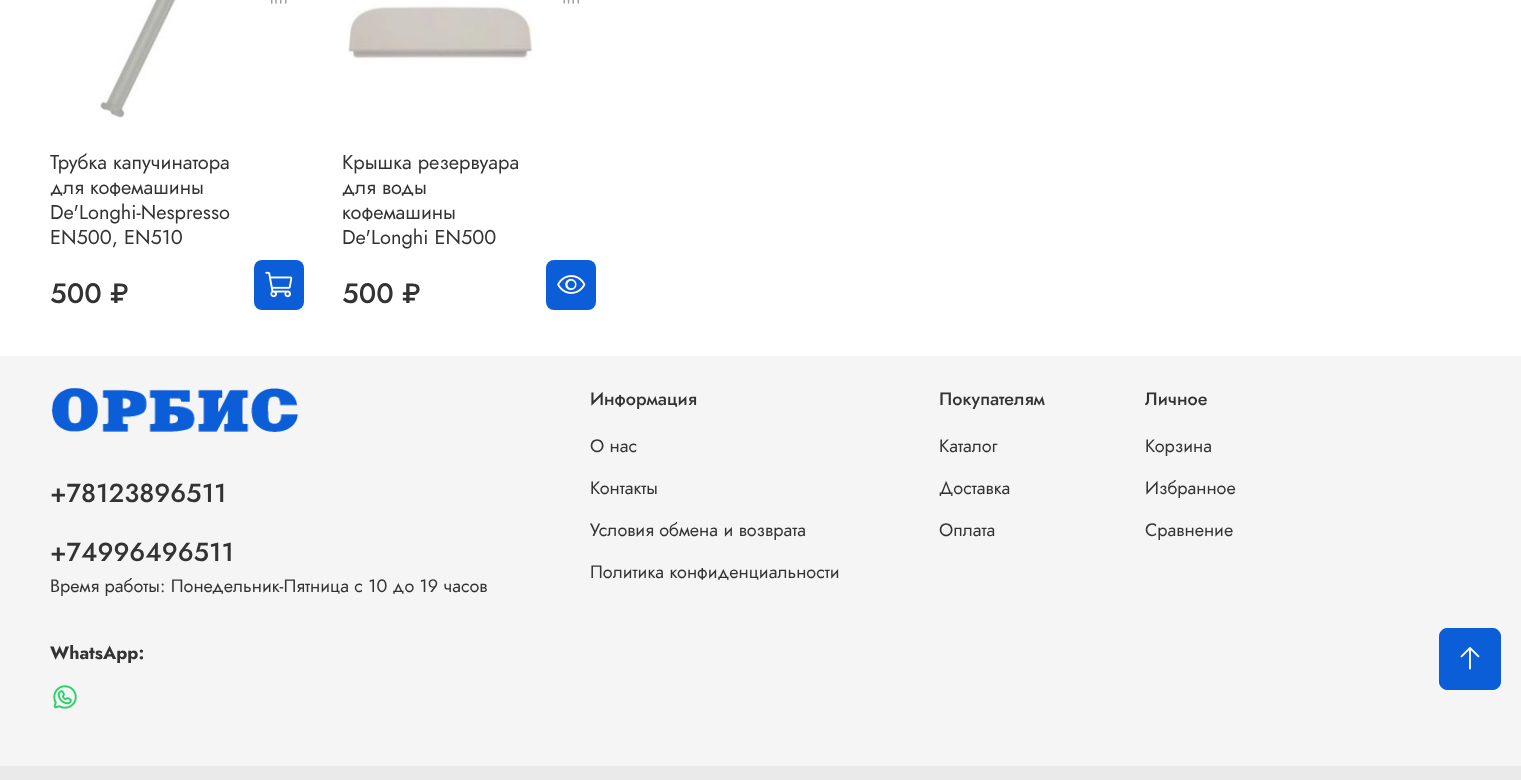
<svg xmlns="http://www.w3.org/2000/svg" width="1521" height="780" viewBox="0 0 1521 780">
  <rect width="100%" height="100%" fill="#fff"/>
  <image x="99" y="0" width="79" height="118" href="img/1.png"/>
  <image x="271" y="0" width="16" height="4" href="img/2.png"/>
  <rect x="254" y="260" width="50" height="50" rx="8" fill="#0b5ed7"/>
  <image x="265" y="271" width="28" height="27" href="img/3.png"/>
  <image x="348" y="4" width="185" height="56" href="img/4.png"/>
  <image x="563" y="0" width="16" height="4" href="img/5.png"/>
  <rect x="546" y="260" width="50" height="50" rx="8" fill="#0b5ed7"/>
  <image x="557" y="275" width="29" height="19" href="img/6.png"/>
  <path d="M0 356h1521v410H0z" fill="#f5f5f6"/>
  <image x="52" y="388" width="247" height="45" href="img/7.png"/>
  <image x="53" y="685" width="24" height="24" href="img/8.png"/>
  <path d="M0 766h1521v14H0z" fill="#eaeaea"/>
  <rect x="1439.5" y="628.5" width="61" height="61" rx="7.5" fill="#0b5ed7" stroke="#0b5ed7"/>
  <image x="1460" y="647" width="20" height="23" href="img/9.png"/>
  <g font-family="Jost" font-size="20" fill="#333">
    <text x="50" y="169">Трубка капучинатора</text>
    <text x="50" y="194">для кофемашины</text>
    <text x="50" y="219">De'Longhi-Nespresso</text>
    <text x="50" y="244">EN500, EN510</text>
  </g>
  <text x="50" y="303" font-family="Jost" font-size="28" font-weight="500" fill="#333">500 ₽</text>
  <g font-family="Jost" font-size="20" fill="#333">
    <text x="342" y="169">Крышка резервуара</text>
    <text x="342" y="194">для воды</text>
    <text x="342" y="219">кофемашины</text>
    <text x="342" y="244">De'Longhi EN500</text>
  </g>
  <text x="342" y="303" font-family="Jost" font-size="28" font-weight="500" fill="#333">500 ₽</text>
  <g font-family="Jost" font-size="26" font-weight="500" fill="#333">
    <text x="50" y="502">+78123896511</text>
    <text x="50" y="561">+74996496511</text>
  </g>
  <text x="50" y="592" font-family="Jost" font-size="18" fill="#333">Время работы: Понедельник-Пятница с 10 до 19 часов</text>
  <text x="50" y="659" font-family="Jost" font-size="18" font-weight="bold" fill="#333">WhatsApp:</text>
  <text x="590" y="405" font-family="Jost" font-size="18" font-weight="500" fill="#333">Информация</text>
  <g font-family="Jost" font-size="18" fill="#333">
    <text x="590" y="452">О нас</text>
    <text x="590" y="494">Контакты</text>
    <text x="590" y="536">Условия обмена и возврата</text>
    <text x="590" y="578">Политика конфиденциальности</text>
  </g>
  <text x="939" y="405" font-family="Jost" font-size="18" font-weight="500" fill="#333">Покупателям</text>
  <g font-family="Jost" font-size="18" fill="#333">
    <text x="939" y="452">Каталог</text>
    <text x="939" y="494">Доставка</text>
    <text x="939" y="536">Оплата</text>
  </g>
  <text x="1145" y="405" font-family="Jost" font-size="18" font-weight="500" fill="#333">Личное</text>
  <g font-family="Jost" font-size="18" fill="#333">
    <text x="1145" y="452">Корзина</text>
    <text x="1145" y="494">Избранное</text>
    <text x="1145" y="536">Сравнение</text>
  </g>
</svg>
